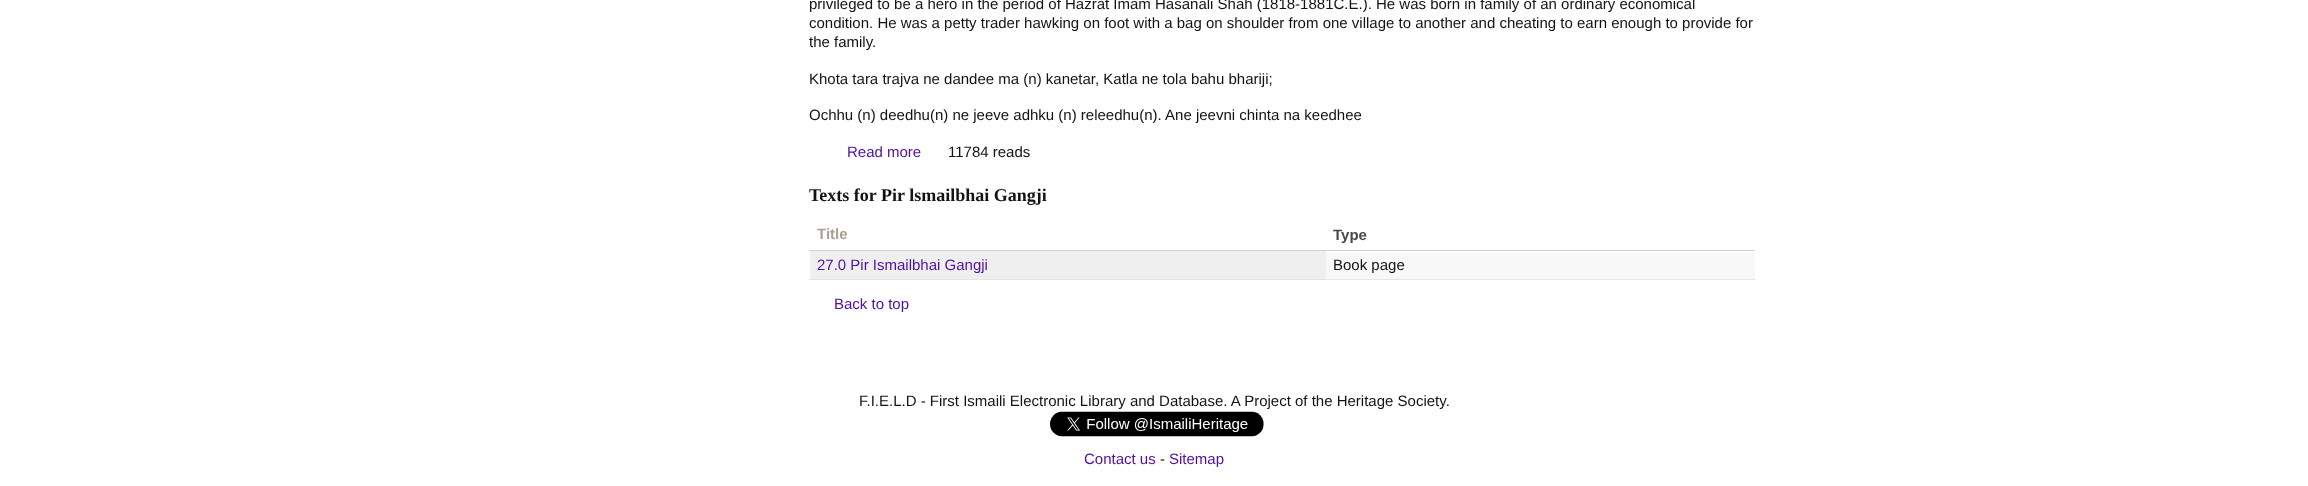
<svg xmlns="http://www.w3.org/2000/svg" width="2308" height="486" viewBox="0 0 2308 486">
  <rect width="100%" height="100%" fill="#fff"/>
  <path d="M809 250h946v1H809z" fill="#d0d0d0"/>
  <path d="M1326 253h429v26H1326z" fill="#f8f8f8"/>
  <path d="M809 279h946v1H809z" fill="#e5e5e5"/>
  <path d="M810 251h516v28H810z" fill="#efefef"/>
  <image x="1050" y="411" width="214" height="26" href="img/1.png"/>
  <g font-family="Liberation Sans" font-size="15" fill="#131313">
    <text x="809" y="9">privileged to be a hero in the period of Hazrat Imam Hasanali Shah (1818-1881C.E.). He was born in family of an ordinary economical</text>
    <text x="809" y="28">condition. He was a petty trader hawking on foot with a bag on shoulder from one village to another and cheating to earn enough to provide for</text>
    <text x="809" y="47">the family.</text>
    <text x="809" y="84">Khota tara trajva ne dandee ma (n) kanetar, Katla ne tola bahu bhariji;</text>
    <text x="809" y="120">Ochhu (n) deedhu(n) ne jeeve adhku (n) releedhu(n). Ane jeevni chinta na keedhee</text>
  </g>
  <text x="847" y="157" font-family="Liberation Sans" font-size="15" fill="#5010a0">Read more</text>
  <text x="948" y="157" font-family="Liberation Sans" font-size="15" fill="#131313">11784 reads</text>
  <text x="809" y="201" font-family="Liberation Serif" font-size="18" font-weight="bold" fill="#131313">Texts for Pir lsmailbhai Gangji</text>
  <text x="817" y="239" font-family="Liberation Sans" font-size="15" font-weight="bold" fill="#a5a291">Title</text>
  <text x="1333" y="240" font-family="Liberation Sans" font-size="15" font-weight="bold" fill="#494949">Type</text>
  <text x="817" y="270" font-family="Liberation Sans" font-size="15" fill="#5010a0">27.0 Pir Ismailbhai Gangji</text>
  <text x="1333" y="270" font-family="Liberation Sans" font-size="15" fill="#131313">Book page</text>
  <text x="834" y="309" font-family="Liberation Sans" font-size="15" fill="#5010a0">Back to top</text>
  <text x="859" y="406" font-family="Liberation Sans" font-size="15" fill="#131313">F.I.E.L.D - First Ismaili Electronic Library and Database. A Project of the Heritage Society.</text>
  <text x="1084" y="464" font-family="Liberation Sans" font-size="15" fill="#5010a0">Contact us</text>
  <text x="1160" y="464" font-family="Liberation Sans" font-size="15" fill="#131313">-</text>
  <text x="1169" y="464" font-family="Liberation Sans" font-size="15" fill="#5010a0">Sitemap</text>
</svg>
